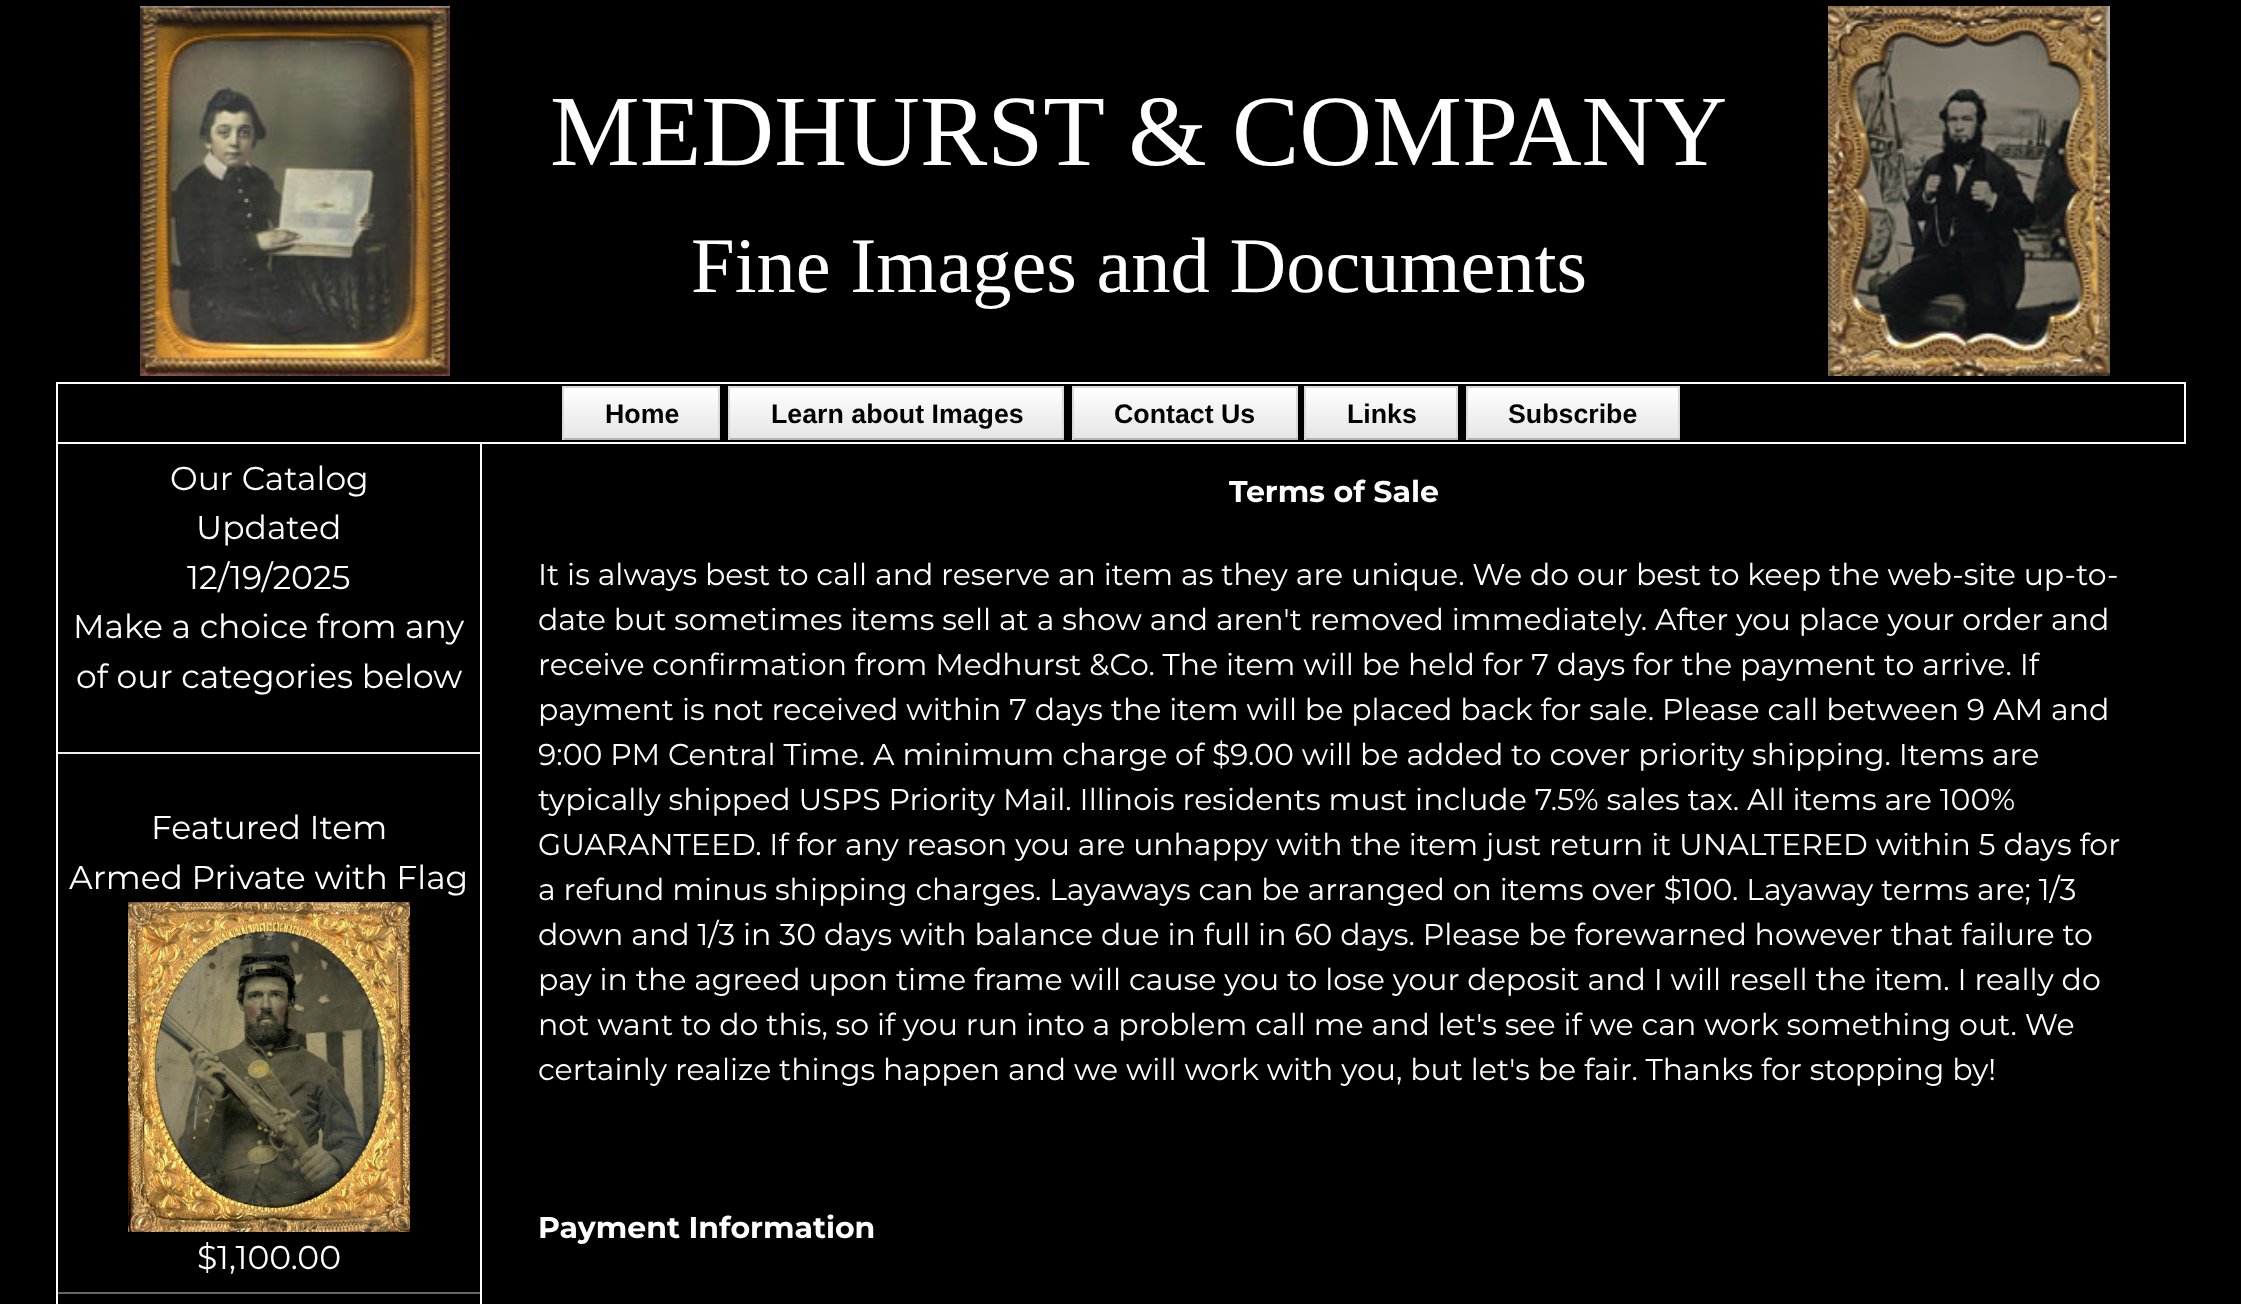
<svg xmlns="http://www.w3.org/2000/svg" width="2241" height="1304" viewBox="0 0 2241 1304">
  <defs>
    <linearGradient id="g1" gradientUnits="userSpaceOnUse" x1="641" y1="388" x2="641" y2="438"><stop offset="0" stop-color="#fff"/><stop offset="1" stop-color="#e6e6e6"/></linearGradient>
    <linearGradient id="g2" gradientUnits="userSpaceOnUse" x1="896" y1="388" x2="896" y2="438"><stop offset="0" stop-color="#fff"/><stop offset="1" stop-color="#e6e6e6"/></linearGradient>
    <linearGradient id="g3" gradientUnits="userSpaceOnUse" x1="1185" y1="388" x2="1185" y2="438"><stop offset="0" stop-color="#fff"/><stop offset="1" stop-color="#e6e6e6"/></linearGradient>
    <linearGradient id="g4" gradientUnits="userSpaceOnUse" x1="1381" y1="388" x2="1381" y2="438"><stop offset="0" stop-color="#fff"/><stop offset="1" stop-color="#e6e6e6"/></linearGradient>
    <linearGradient id="g5" gradientUnits="userSpaceOnUse" x1="1573" y1="388" x2="1573" y2="438"><stop offset="0" stop-color="#fff"/><stop offset="1" stop-color="#e6e6e6"/></linearGradient>
  </defs>
  <rect width="100%" height="100%" fill="#000"/>
  <image x="140" y="6" width="310" height="370" href="img/1.png"/>
  <image x="1828" y="6" width="282" height="370" href="img/2.png"/>
  <path d="M57 383h2128v60H57z" fill="none" stroke="#fff" stroke-width="2"/>
  <path d="M564 388h154v50H564z" fill="url(#g1)"/>
  <path d="M562 386h158v2H562z" fill="#d9d9d9"/>
  <path d="M718 386h2v54H718z" fill="#d9d9d9"/>
  <path d="M562 438h158v2H562z" fill="#b3b3b3"/>
  <path d="M562 386h2v54H562z" fill="#d9d9d9"/>
  <path d="M730 388h332v50H730z" fill="url(#g2)"/>
  <path d="M728 386h336v2H728z" fill="#d9d9d9"/>
  <path d="M1062 386h2v54H1062z" fill="#d9d9d9"/>
  <path d="M728 438h336v2H728z" fill="#b3b3b3"/>
  <path d="M728 386h2v54H728z" fill="#d9d9d9"/>
  <path d="M1074 388h222v50H1074z" fill="url(#g3)"/>
  <path d="M1072 386h226v2H1072z" fill="#d9d9d9"/>
  <path d="M1296 386h2v54H1296z" fill="#d9d9d9"/>
  <path d="M1072 438h226v2H1072z" fill="#b3b3b3"/>
  <path d="M1072 386h2v54H1072z" fill="#d9d9d9"/>
  <path d="M1306 388h150v50H1306z" fill="url(#g4)"/>
  <path d="M1304 386h154v2H1304z" fill="#d9d9d9"/>
  <path d="M1456 386h2v54H1456z" fill="#d9d9d9"/>
  <path d="M1304 438h154v2H1304z" fill="#b3b3b3"/>
  <path d="M1304 386h2v54H1304z" fill="#d9d9d9"/>
  <path d="M1468 388h210v50H1468z" fill="url(#g5)"/>
  <path d="M1466 386h214v2H1466z" fill="#d9d9d9"/>
  <path d="M1678 386h2v54H1678z" fill="#d9d9d9"/>
  <path d="M1466 438h214v2H1466z" fill="#b3b3b3"/>
  <path d="M1466 386h2v54H1466z" fill="#d9d9d9"/>
  <path d="M480 444h2v860H480z" fill="#fff"/>
  <path d="M56 444h2v860H56z" fill="#fff"/>
  <path d="M58 752h422v2H58z" fill="#eee"/>
  <image x="128" y="902" width="282" height="330" href="img/3.png"/>
  <path d="M58 1292h422v2H58z" fill="#666"/>
  <text x="550" y="165" font-family="Liberation Serif" font-size="100.9" fill="#fff">MEDHURST &amp; COMPANY</text>
  <text x="691" y="292" font-family="Liberation Serif" font-size="78.5" fill="#fff">Fine Images and Documents</text>
  <g font-family="Liberation Sans" font-size="26.75" font-weight="bold" fill="#000">
    <text x="605" y="423">Home</text>
    <text x="771" y="423">Learn about Images</text>
    <text x="1114" y="423">Contact Us</text>
    <text x="1347" y="423">Links</text>
    <text x="1508" y="423">Subscribe</text>
  </g>
  <g font-family="Montserrat" font-size="33" fill="#fff">
    <text x="170" y="490">Our Catalog</text>
    <text x="196" y="539">Updated</text>
    <text x="187" y="589">12/19/2025</text>
    <text x="73" y="638">Make a choice from any</text>
    <text x="76" y="688">of our categories below</text>
    <text x="151" y="839">Featured Item</text>
    <text x="69" y="889">Armed Private with Flag</text>
    <text x="197" y="1269">$1,100.00</text>
  </g>
  <text x="1229" y="502" font-family="Montserrat" font-size="30" font-weight="bold" fill="#fff">Terms of Sale</text>
  <g font-family="Montserrat" font-size="30" fill="#fff">
    <text x="538" y="585">It is always best to call and reserve an item as they are unique. We do our best to keep the web-site up-to-</text>
    <text x="538" y="630">date but sometimes items sell at a show and aren't removed immediately. After you place your order and</text>
    <text x="538" y="675">receive confirmation from Medhurst &amp;Co. The item will be held for 7 days for the payment to arrive. If</text>
    <text x="538" y="720">payment is not received within 7 days the item will be placed back for sale. Please call between 9 AM and</text>
    <text x="538" y="765">9:00 PM Central Time. A minimum charge of $9.00 will be added to cover priority shipping. Items are</text>
    <text x="538" y="810">typically shipped USPS Priority Mail. Illinois residents must include 7.5% sales tax. All items are 100%</text>
    <text x="538" y="855">GUARANTEED. If for any reason you are unhappy with the item just return it UNALTERED within 5 days for</text>
    <text x="538" y="900">a refund minus shipping charges. Layaways can be arranged on items over $100. Layaway terms are; 1/3</text>
    <text x="538" y="945">down and 1/3 in 30 days with balance due in full in 60 days. Please be forewarned however that failure to</text>
    <text x="538" y="990">pay in the agreed upon time frame will cause you to lose your deposit and I will resell the item. I really do</text>
    <text x="538" y="1035">not want to do this, so if you run into a problem call me and let's see if we can work something out. We</text>
    <text x="538" y="1080">certainly realize things happen and we will work with you, but let's be fair. Thanks for stopping by!</text>
  </g>
  <text x="538" y="1238" font-family="Montserrat" font-size="30" font-weight="bold" fill="#fff">Payment Information</text>
</svg>
